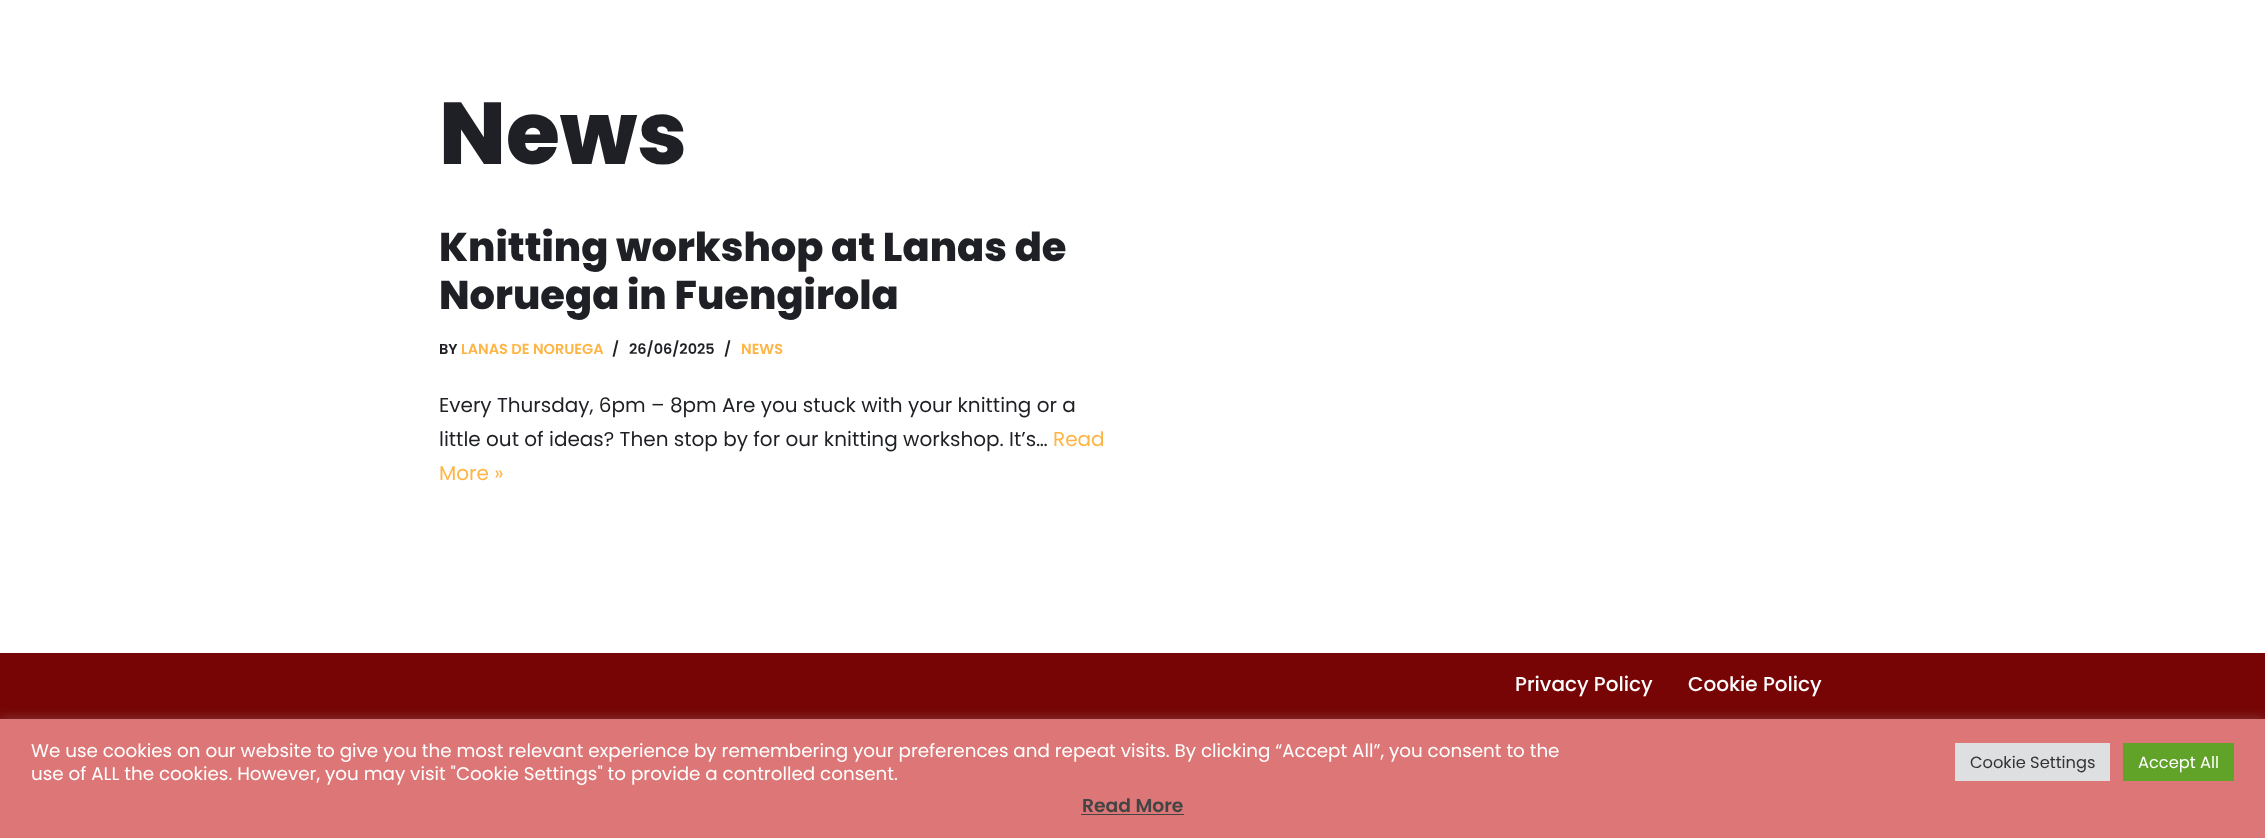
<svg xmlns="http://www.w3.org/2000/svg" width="2265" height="838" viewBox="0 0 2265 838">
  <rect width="100%" height="100%" fill="#fff"/>
  <path d="M0 653h2265v66H0z" fill="#770505"/>
  <path d="M0 718h2265v120H0z" fill="#acabab4d" filter="blur(6px)"/>
  <path d="M0 719h2265v119H0z" fill="#d77"/>
  <path d="M1955 743h155v38H1955z" fill="#dedfe0"/>
  <path d="M2123 743h111v38H2123z" fill="#61a229"/>
  <path d="M1081 814h103v1H1081z" fill="#444"/>
  <text x="439" y="164" font-family="Poppins" font-size="87.5" font-weight="800" fill="#1f2025">News</text>
  <g font-family="Poppins" font-size="40" font-weight="800" fill="#1f2025">
    <text x="439" y="261">Knitting workshop at Lanas de</text>
    <text x="439" y="309">Noruega in Fuengirola</text>
  </g>
  <text x="439" y="354" font-family="Poppins" font-size="14.5" font-weight="600" fill="#1f2025">BY</text>
  <text x="461" y="354" font-family="Poppins" font-size="14.5" font-weight="600" fill="#ffb546">LANAS DE NORUEGA</text>
  <g font-family="Poppins" font-size="14.5" font-weight="600" fill="#1f2025">
    <text x="612" y="354">/</text>
    <text x="629" y="354">26/06/2025</text>
    <text x="724" y="354">/</text>
  </g>
  <text x="741" y="354" font-family="Poppins" font-size="14.5" font-weight="600" fill="#ffb546">NEWS</text>
  <g font-family="Poppins" font-size="20" fill="#1f2025">
    <text x="439" y="412">Every Thursday, 6pm – 8pm Are you stuck with your knitting or a</text>
    <text x="439" y="446">little out of ideas? Then stop by for our knitting workshop. It’s…</text>
  </g>
  <g font-family="Poppins" font-size="20" fill="#ffb546">
    <text x="1053" y="446">Read</text>
    <text x="439" y="480">More »</text>
  </g>
  <g font-family="Poppins" font-size="20" font-weight="500" fill="#fff">
    <text x="1515" y="691">Privacy Policy</text>
    <text x="1688" y="691">Cookie Policy</text>
  </g>
  <g font-family="Poppins" font-size="18.33" fill="#fff">
    <text x="31" y="757">We use cookies on our website to give you the most relevant experience by remembering your preferences and repeat visits. By clicking “Accept All”, you consent to the</text>
    <text x="31" y="780">use of ALL the cookies. However, you may visit "Cookie Settings" to provide a controlled consent.</text>
  </g>
  <text x="1970" y="768" font-family="Poppins" font-size="16.25" fill="#333">Cookie Settings</text>
  <text x="2138" y="768" font-family="Poppins" font-size="16.25" fill="#fff">Accept All</text>
  <text x="1082" y="812" font-family="Poppins" font-size="18.75" font-weight="600" fill="#444">Read More</text>
</svg>
